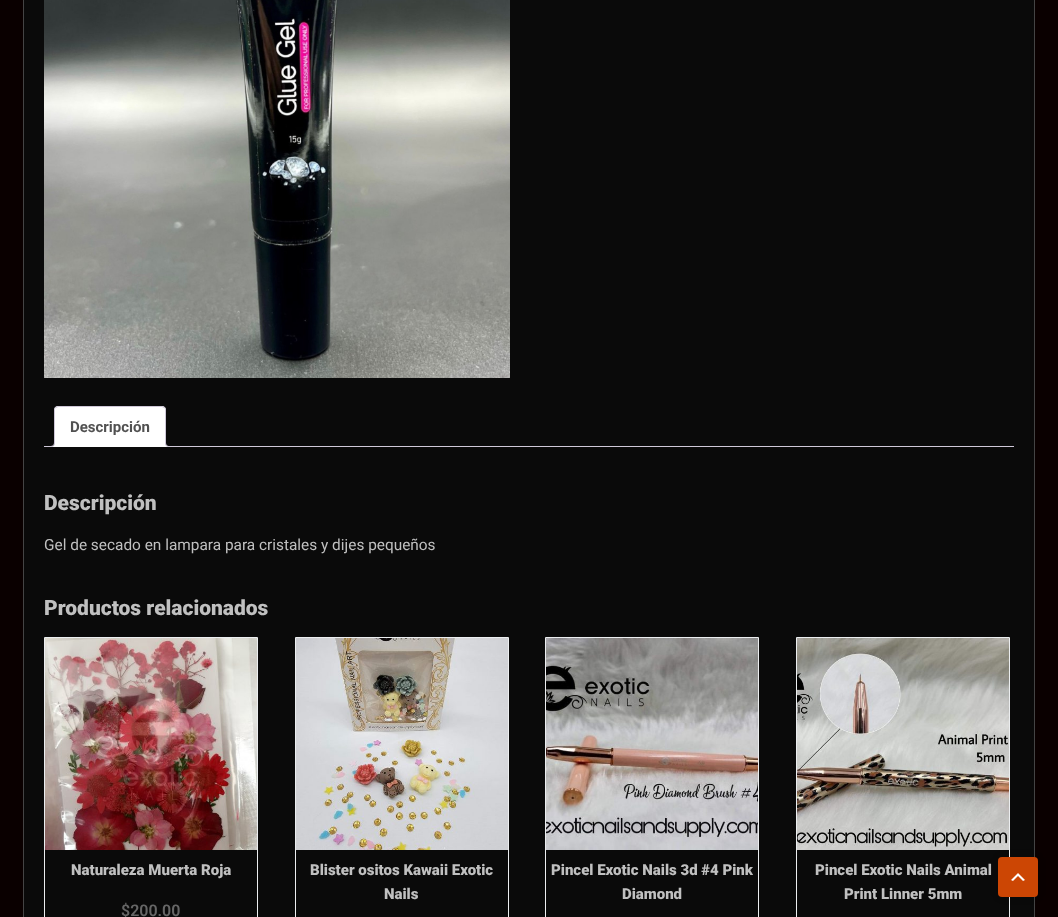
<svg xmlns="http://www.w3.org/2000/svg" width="1058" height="917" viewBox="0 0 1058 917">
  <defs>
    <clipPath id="clip1"><path d="M44 406h970v41H44z"/></clipPath>
  </defs>
  <rect width="100%" height="100%" fill="#0a0000"/>
  <path d="M23.5 -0.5h1011v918H23.5z" fill="#0a0a0a" stroke="#444"/>
  <image x="44" y="0" width="466" height="378" href="img/1.png"/>
  <path d="M44 446h970v1H44z" fill="#cfc8d8"/>
  <path d="M58 406H162C164 406 166 408 166 410V447H54V410C54 408 56 406 58 406Z" fill="#fff"/>
  <path d="M58 406L55 407L56 408L58 407H162L164 408L165 407L162 406Z" fill="#cfc8d8"/>
  <path d="M166 447V410C166 409 165.5 408 165 407L164 408C165 408 165 409 165 410V446Z" fill="#cfc8d8"/>
  <path d="M166 447L165 446H55L54 447Z" fill="#fff"/>
  <path d="M54 447L55 446V410C55 409 55 408 56 408L55 407C54.5 408 54 409 54 410Z" fill="#cfc8d8"/>
  <g clip-path="url(#clip1)">
    <path d="M52 447V449C55.5 449 57 447.5 57 444H55C54.5 445.5 53.5 446.5 52 447Z" fill="#fff"/>
  </g>
  <path d="M50 442H55C55 445.5 53.5 447 50 447ZM50 442H54C54 445 53 446 50 446Z" fill="#cfc8d8" fill-rule="evenodd"/>
  <g clip-path="url(#clip1)">
    <path d="M163 444C163 447.5 164.5 449 168 449V447C166.5 446.5 165.5 445.5 165 444Z" fill="#fff"/>
  </g>
  <path d="M165 442H170V447C167.5 447 165 446 165 443ZM166 442H170V446C168 446 166 445.5 166 443Z" fill="#cfc8d8" fill-rule="evenodd"/>
  <path d="M44.5 637.5h213v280H44.5z" fill="none" stroke="#eceef0"/>
  <image x="45" y="638" width="212" height="212" href="img/2.png"/>
  <path d="M295.5 637.5h213v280H295.5z" fill="none" stroke="#eceef0"/>
  <image x="296" y="638" width="212" height="212" href="img/3.png"/>
  <path d="M545.5 637.5h213v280H545.5z" fill="none" stroke="#eceef0"/>
  <image x="546" y="638" width="212" height="212" href="img/4.png"/>
  <path d="M796.5 637.5h213v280H796.5z" fill="none" stroke="#eceef0"/>
  <image x="797" y="638" width="212" height="212" href="img/5.png"/>
  <rect x="998" y="857" width="40" height="40" rx="4" fill="#0000000d" filter="blur(5px)"/>
  <rect x="998" y="857" width="40" height="40" rx="4" fill="#cc4604"/>
  <image x="1011" y="873" width="14" height="8" href="img/6.png"/>
  <text x="70" y="432" font-family="Roboto" font-size="15" font-weight="bold" fill="#515151">Descripción</text>
  <text x="44" y="510" font-family="Roboto" font-size="21" font-weight="900" fill="#c0c0c0">Descripción</text>
  <text x="44" y="550" font-family="Roboto" font-size="15.4" fill="#c0c0c0">Gel de secado en lampara para cristales y dijes pequeños</text>
  <text x="44" y="615" font-family="Roboto" font-size="21" font-weight="900" fill="#c0c0c0">Productos relacionados</text>
  <text x="71" y="875" font-family="Roboto" font-size="15" font-weight="900" fill="#c0c0c0">Naturaleza Muerta Roja</text>
  <text x="121" y="916" font-family="Roboto" font-size="16" font-weight="600" fill="#666">$200.00</text>
  <g font-family="Roboto" font-size="15" font-weight="900" fill="#c0c0c0">
    <text x="310" y="875">Blister ositos Kawaii Exotic</text>
    <text x="384" y="899">Nails</text>
    <text x="551" y="875">Pincel Exotic Nails 3d #4 Pink</text>
    <text x="622" y="899">Diamond</text>
    <text x="815" y="875">Pincel Exotic Nails Animal</text>
    <text x="844" y="899">Print Linner 5mm</text>
  </g>
</svg>
